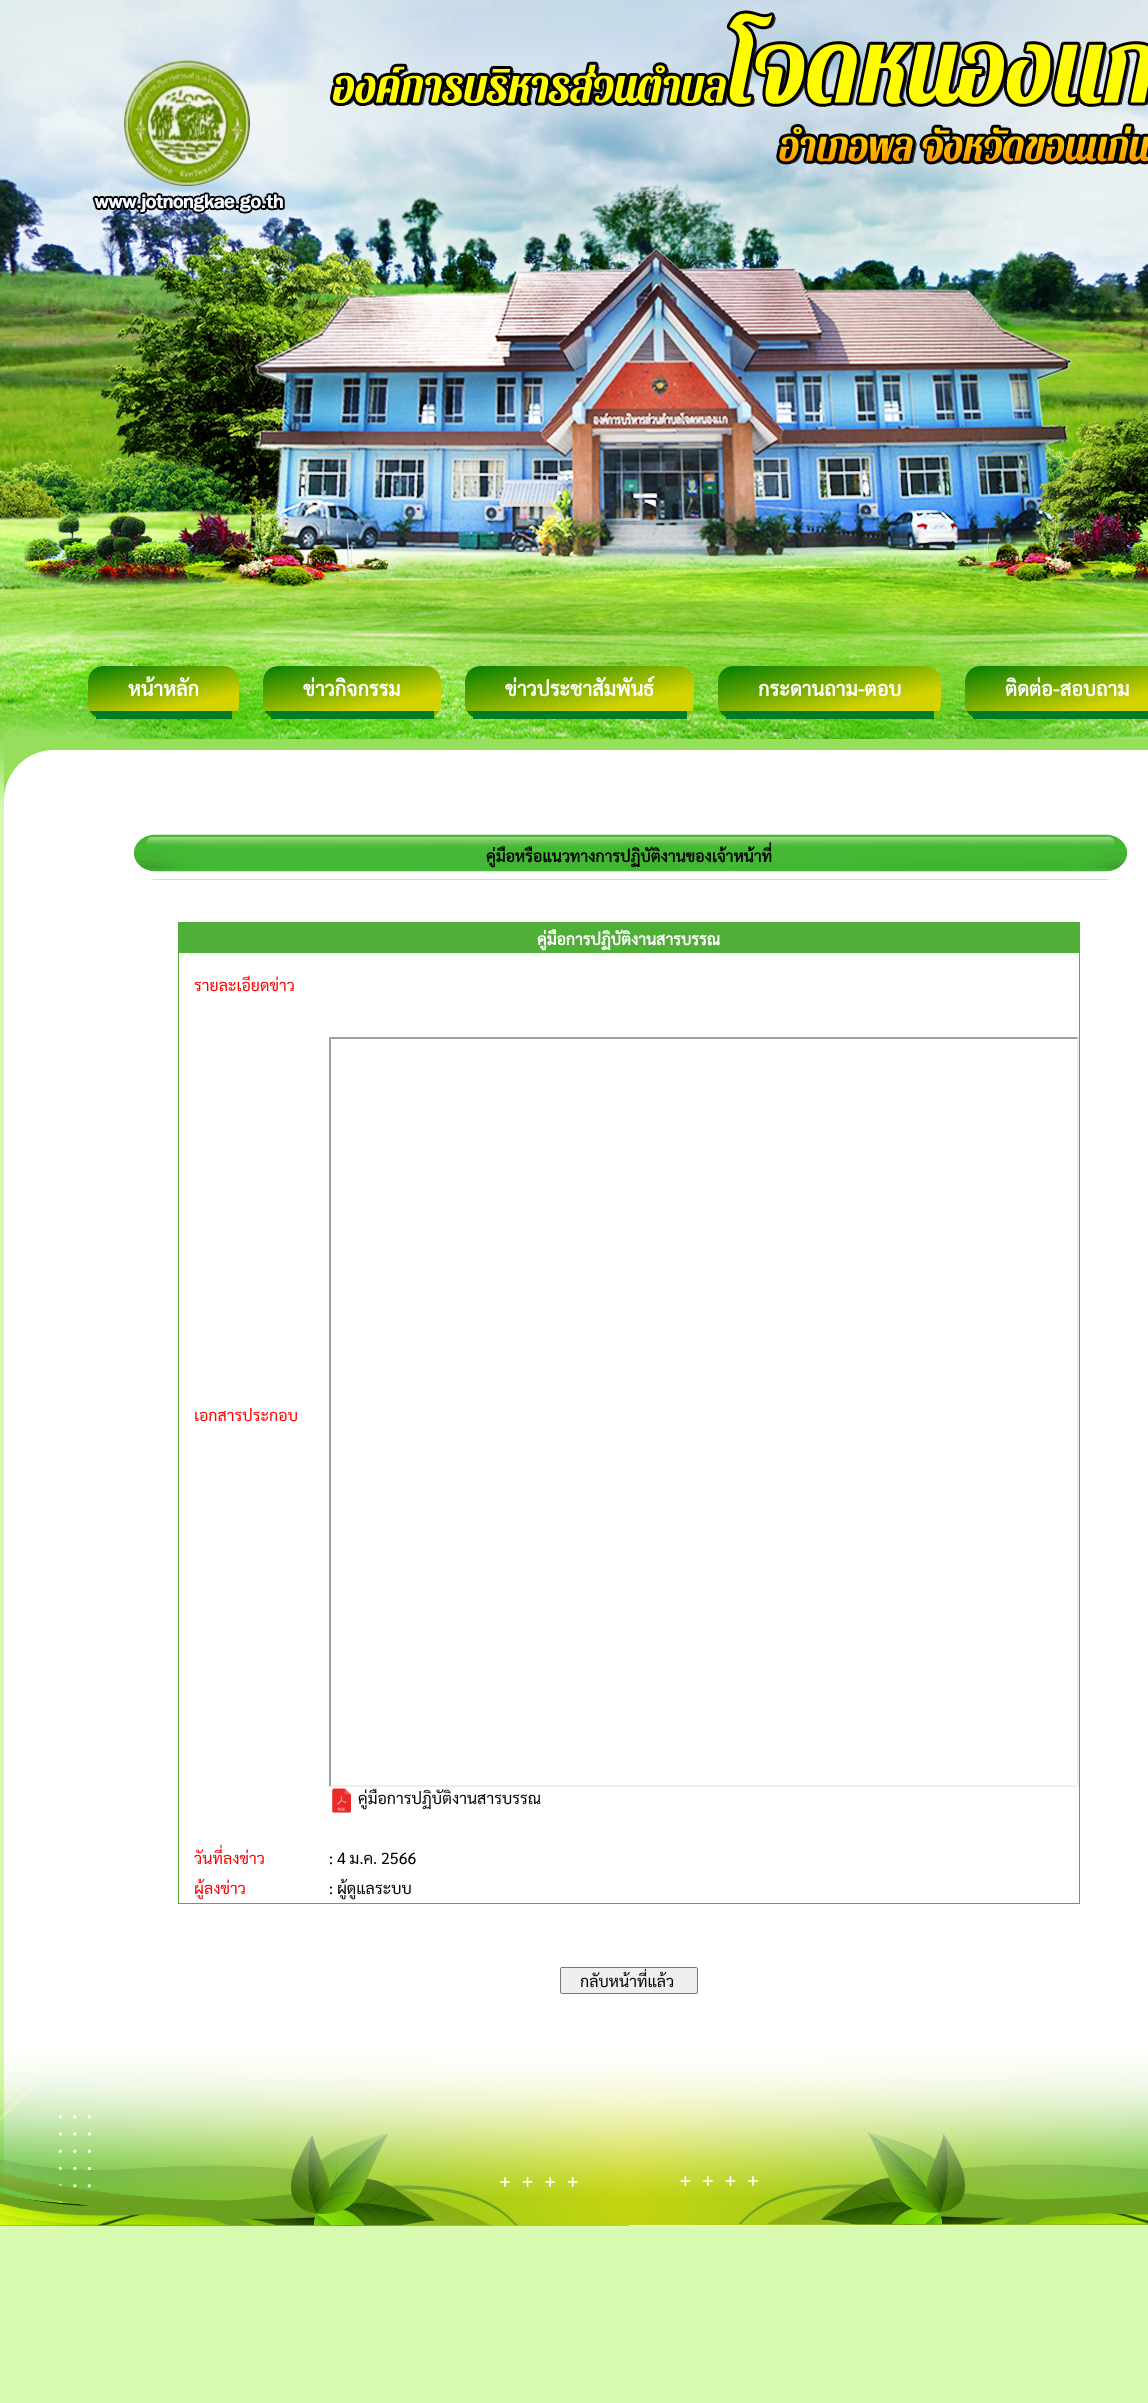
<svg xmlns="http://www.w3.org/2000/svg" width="1148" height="2403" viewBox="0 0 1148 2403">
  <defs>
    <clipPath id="clip1"><rect x="88" y="666" width="151" height="53" rx="15"/></clipPath>
    <linearGradient id="g1" gradientUnits="userSpaceOnUse" x1="172" y1="726" x2="155" y2="651"><stop offset="0.22" stop-color="#d4d300"/><stop offset="1" stop-color="#007c03"/></linearGradient>
    <linearGradient id="g2" gradientUnits="userSpaceOnUse" x1="172" y1="771" x2="155" y2="696"><stop offset="0.22" stop-color="#d4d300"/><stop offset="1" stop-color="#007c03"/></linearGradient>
    <clipPath id="clip2"><rect x="263" y="666" width="178" height="53" rx="15"/></clipPath>
    <linearGradient id="g3" gradientUnits="userSpaceOnUse" x1="361" y1="729" x2="343" y2="648"><stop offset="0.22" stop-color="#d4d300"/><stop offset="1" stop-color="#007c03"/></linearGradient>
    <linearGradient id="g4" gradientUnits="userSpaceOnUse" x1="361" y1="774" x2="343" y2="693"><stop offset="0.22" stop-color="#d4d300"/><stop offset="1" stop-color="#007c03"/></linearGradient>
    <clipPath id="clip3"><rect x="465" y="666" width="229" height="53" rx="15"/></clipPath>
    <linearGradient id="g5" gradientUnits="userSpaceOnUse" x1="590" y1="735" x2="569" y2="642"><stop offset="0.22" stop-color="#d4d300"/><stop offset="1" stop-color="#007c03"/></linearGradient>
    <linearGradient id="g6" gradientUnits="userSpaceOnUse" x1="590" y1="780" x2="569" y2="687"><stop offset="0.22" stop-color="#d4d300"/><stop offset="1" stop-color="#007c03"/></linearGradient>
    <clipPath id="clip4"><rect x="718" y="666" width="223" height="53" rx="15"/></clipPath>
    <linearGradient id="g7" gradientUnits="userSpaceOnUse" x1="840" y1="734" x2="819" y2="643"><stop offset="0.22" stop-color="#d4d300"/><stop offset="1" stop-color="#007c03"/></linearGradient>
    <linearGradient id="g8" gradientUnits="userSpaceOnUse" x1="840" y1="779" x2="819" y2="688"><stop offset="0.22" stop-color="#d4d300"/><stop offset="1" stop-color="#007c03"/></linearGradient>
    <clipPath id="clip5"><rect x="965" y="666" width="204" height="53" rx="15"/></clipPath>
    <linearGradient id="g9" gradientUnits="userSpaceOnUse" x1="1077" y1="732" x2="1057" y2="645"><stop offset="0.22" stop-color="#d4d300"/><stop offset="1" stop-color="#007c03"/></linearGradient>
    <linearGradient id="g10" gradientUnits="userSpaceOnUse" x1="1077" y1="777" x2="1057" y2="690"><stop offset="0.22" stop-color="#d4d300"/><stop offset="1" stop-color="#007c03"/></linearGradient>
    <clipPath id="clip6"><path d="M562 1969h134v23H562z"/></clipPath>
  </defs>
  <rect width="100%" height="100%" fill="#d7fab0"/>
  <image x="0" y="0" width="4" height="739" href="img/1.png"/>
  <image x="4" y="0" width="1144" height="739" href="img/2.png"/>
  <image x="124" y="60" width="126" height="126" href="img/3.png"/>
  <image x="330" y="10" width="818" height="155" href="img/4.png"/>
  <g clip-path="url(#clip1)">
    <path d="M103 666H224C232.5 666 239 672.5 239 681V711H88V681C88 672.5 94.5 666 103 666Z" fill="url(#g1)"/>
    <path d="M88 711h151v7H88z" fill="url(#g2)"/>
  </g>
  <path d="M96 711h136v8H96z" fill="#007b26"/>
  <g clip-path="url(#clip2)">
    <path d="M278 666H426C434.5 666 441 672.5 441 681V711H263V681C263 672.5 269.5 666 278 666Z" fill="url(#g3)"/>
    <path d="M263 711h178v7H263z" fill="url(#g4)"/>
  </g>
  <path d="M271 711h163v8H271z" fill="#007b26"/>
  <g clip-path="url(#clip3)">
    <path d="M480 666H679C687.5 666 694 672.5 694 681V711H465V681C465 672.5 471.5 666 480 666Z" fill="url(#g5)"/>
    <path d="M465 711h229v7H465z" fill="url(#g6)"/>
  </g>
  <path d="M473 711h214v8H473z" fill="#007b26"/>
  <g clip-path="url(#clip4)">
    <path d="M733 666H926C934.5 666 941 672.5 941 681V711H718V681C718 672.5 724.5 666 733 666Z" fill="url(#g7)"/>
    <path d="M718 711h223v7H718z" fill="url(#g8)"/>
  </g>
  <path d="M726 711h208v8H726z" fill="#007b26"/>
  <g clip-path="url(#clip5)">
    <path d="M980 666H1148C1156.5 666 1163 672.5 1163 681V711H965V681C965 672.5 971.5 666 980 666Z" fill="url(#g9)"/>
    <path d="M965 711h8v7H965z" fill="url(#g10)"/>
  </g>
  <path d="M973 711h175v8H973z" fill="#007b26"/>
  <image x="0" y="739" width="4" height="68" href="img/5.png"/>
  <image x="4" y="739" width="1144" height="91" href="img/6.png"/>
  <path d="M4 830h1144v1219H4z" fill="#fff"/>
  <image x="133" y="834" width="995" height="46" href="img/7.png"/>
  <path d="M178 922h902v982H178z" fill="#50af39"/>
  <path d="M179 953h900v63H179z" fill="#fff"/>
  <path d="M179 1016h900v797H179z" fill="#fff"/>
  <path d="M329 1037H1079L1077 1039H331Z" fill="#9f9f9f"/>
  <path d="M1079 1037V1787L1077 1785V1039Z" fill="#eee"/>
  <path d="M1079 1787H329L331 1785H1077Z" fill="#eee"/>
  <path d="M329 1787V1037L331 1039V1785Z" fill="#9f9f9f"/>
  <image x="332" y="1788" width="19" height="25" href="img/8.png"/>
  <path d="M179 1813h900v30H179z" fill="#fff"/>
  <path d="M179 1843h900v30H179z" fill="#fff"/>
  <path d="M179 1873h900v30H179z" fill="#fff"/>
  <rect x="560.5" y="1967.5" width="137" height="26" rx="1.5" fill="#efefef" stroke="#767676"/>
  <image x="0" y="2061" width="4" height="165" href="img/9.png"/>
  <image x="4" y="2049" width="1144" height="177" href="img/10.png"/>
  <g font-family="Sarabun" font-size="20" font-weight="bold" fill="#fff">
    <text x="128" y="696">หน้าหลัก</text>
    <text x="303" y="696">ข่าวกิจกรรม</text>
    <text x="505" y="696">ข่าวประชาสัมพันธ์</text>
    <text x="758" y="696">กระดานถาม-ตอบ</text>
    <text x="1005" y="696">ติดต่อ-สอบถาม</text>
  </g>
  <text x="486" y="862" font-family="Sarabun" font-size="16" font-weight="bold" fill="#000">คู่มือหรือแนวทางการปฏิบัติงานของเจ้าหน้าที่</text>
  <text x="537" y="945" font-family="Sarabun" font-size="16" font-weight="bold" fill="#fff">คู่มือการปฏิบัติงานสารบรรณ</text>
  <g font-family="Sarabun" font-size="16" fill="#f00">
    <text x="194" y="991">รายละเอียดข่าว</text>
    <text x="194" y="1421">เอกสารประกอบ</text>
  </g>
  <text x="358" y="1804" font-family="Sarabun" font-size="16" fill="#000">คู่มือการปฏิบัติงานสารบรรณ</text>
  <text x="194" y="1864" font-family="Sarabun" font-size="16" fill="#f00">วันที่ลงข่าว</text>
  <text x="329" y="1864" font-family="Sarabun" font-size="16" fill="#000">: 4 ม.ค. 2566</text>
  <text x="194" y="1894" font-family="Sarabun" font-size="16" fill="#f00">ผู้ลงข่าว</text>
  <text x="329" y="1894" font-family="Sarabun" font-size="16" fill="#000">: ผู้ดูแลระบบ</text>
  <g clip-path="url(#clip6)">
    <text x="580" y="1987" font-family="Sarabun" font-size="16" fill="#000">กลับหน้าที่แล้ว</text>
  </g>
</svg>
